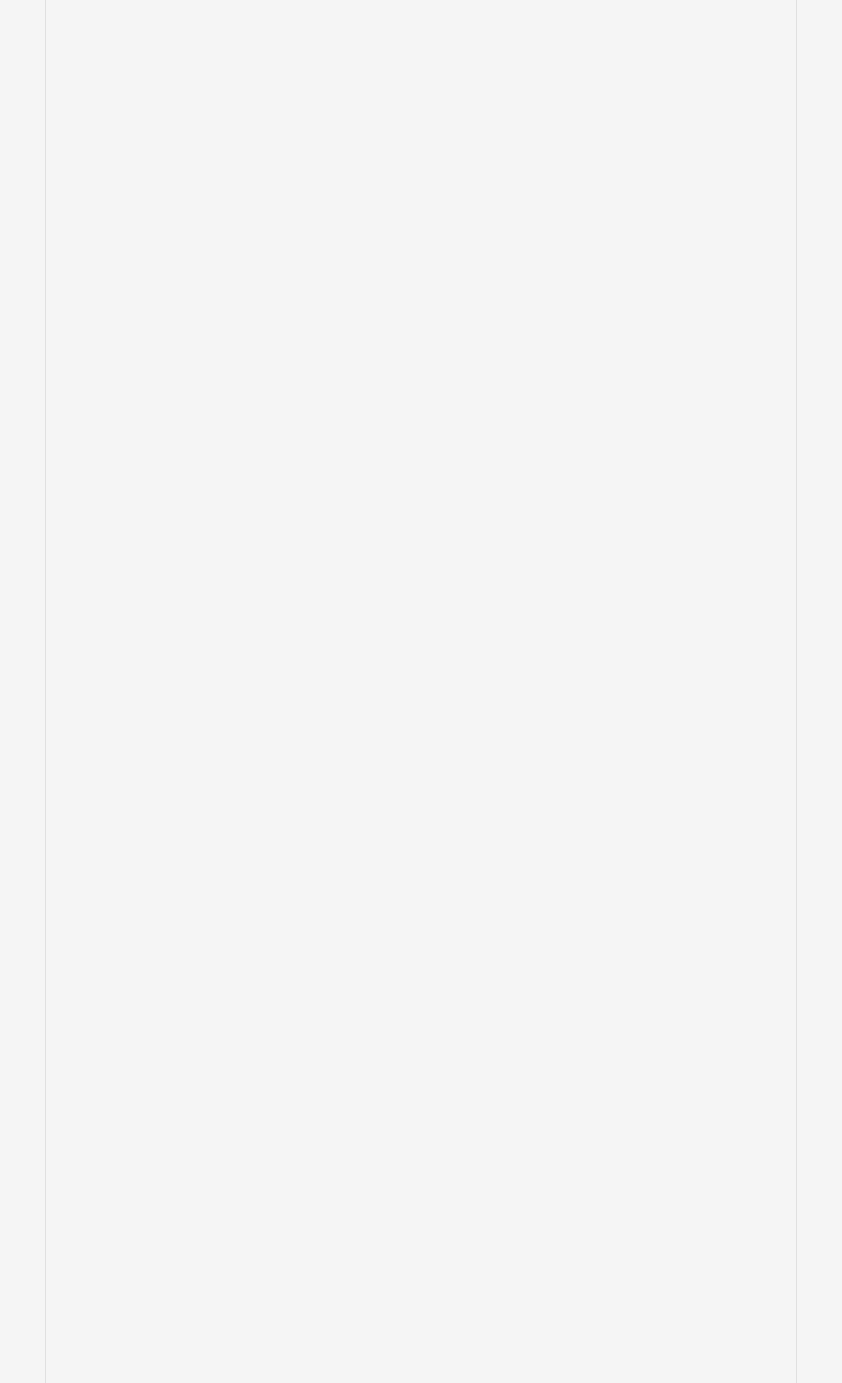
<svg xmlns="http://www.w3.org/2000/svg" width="842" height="1383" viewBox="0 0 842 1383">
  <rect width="100%" height="100%" fill="#f5f5f5"/>
  <path d="M796 0h1v1383H796z" fill="#e0e0e0"/>
  <path d="M45 0h1v1383H45z" fill="#e0e0e0"/>
</svg>
